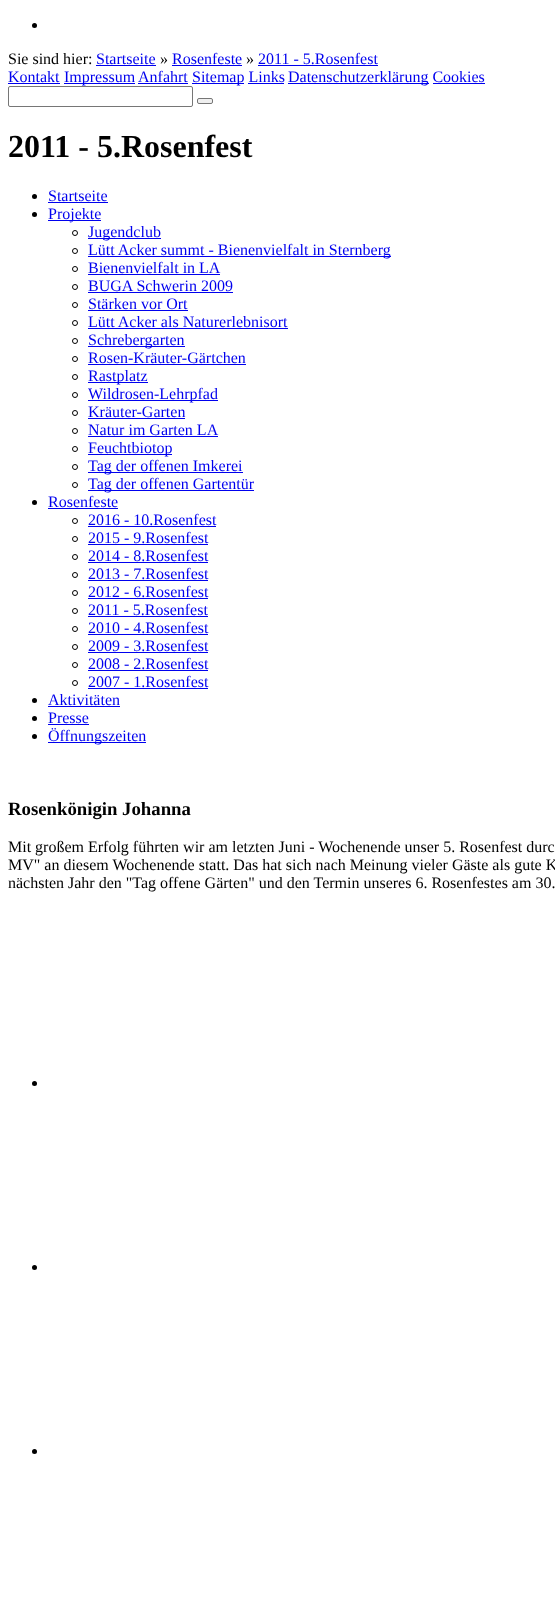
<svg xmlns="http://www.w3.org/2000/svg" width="555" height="1602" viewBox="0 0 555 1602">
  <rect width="100%" height="100%" fill="#fff"/>
  <circle cx="34.5" cy="25.5" r="2.5" fill="#000"/>
  <path d="M96 65h60v1H96z" fill="#00e"/>
  <path d="M172 65h70v1H172z" fill="#00e"/>
  <path d="M258 65h120v1H258z" fill="#00e"/>
  <path d="M8 83h52v1H8z" fill="#00e"/>
  <path d="M64 83h71v1H64z" fill="#00e"/>
  <path d="M138 83h50v1H138z" fill="#00e"/>
  <path d="M192 83h52v1H192z" fill="#00e"/>
  <path d="M288 83h141v1H288z" fill="#00e"/>
  <path d="M248 83h36v1H248z" fill="#00e"/>
  <path d="M433 83h52v1H433z" fill="#00e"/>
  <rect x="8.5" y="86.5" width="184" height="20" rx="1.5" fill="none" stroke="#767676"/>
  <rect x="197.5" y="98.5" width="15" height="5" rx="1.5" fill="#efefef" stroke="#767676"/>
  <circle cx="34.5" cy="196.5" r="2.5" fill="#000"/>
  <path d="M48 202h60v1H48z" fill="#00e"/>
  <circle cx="34.5" cy="214.5" r="2.5" fill="#000"/>
  <path d="M48 220h53v1H48z" fill="#00e"/>
  <circle cx="75" cy="233" r="2.5" fill="none" stroke="#000"/>
  <path d="M88 238h73v1H88z" fill="#00e"/>
  <circle cx="75" cy="251" r="2.5" fill="none" stroke="#000"/>
  <path d="M88 256h303v1H88z" fill="#00e"/>
  <circle cx="75" cy="269" r="2.5" fill="none" stroke="#000"/>
  <path d="M88 274h132v1H88z" fill="#00e"/>
  <circle cx="75" cy="287" r="2.5" fill="none" stroke="#000"/>
  <path d="M88 292h145v1H88z" fill="#00e"/>
  <circle cx="75" cy="305" r="2.5" fill="none" stroke="#000"/>
  <path d="M88 310h100v1H88z" fill="#00e"/>
  <circle cx="75" cy="323" r="2.5" fill="none" stroke="#000"/>
  <path d="M88 328h200v1H88z" fill="#00e"/>
  <circle cx="75" cy="341" r="2.5" fill="none" stroke="#000"/>
  <path d="M88 346h97v1H88z" fill="#00e"/>
  <circle cx="75" cy="359" r="2.5" fill="none" stroke="#000"/>
  <path d="M88 364h158v1H88z" fill="#00e"/>
  <circle cx="75" cy="377" r="2.5" fill="none" stroke="#000"/>
  <path d="M88 382h60v1H88z" fill="#00e"/>
  <circle cx="75" cy="395" r="2.5" fill="none" stroke="#000"/>
  <path d="M88 400h130v1H88z" fill="#00e"/>
  <circle cx="75" cy="413" r="2.5" fill="none" stroke="#000"/>
  <path d="M88 418h97v1H88z" fill="#00e"/>
  <circle cx="75" cy="431" r="2.5" fill="none" stroke="#000"/>
  <path d="M88 436h130v1H88z" fill="#00e"/>
  <circle cx="75" cy="449" r="2.5" fill="none" stroke="#000"/>
  <path d="M88 454h84v1H88z" fill="#00e"/>
  <circle cx="75" cy="467" r="2.5" fill="none" stroke="#000"/>
  <path d="M88 472h155v1H88z" fill="#00e"/>
  <circle cx="75" cy="485" r="2.5" fill="none" stroke="#000"/>
  <path d="M88 490h166v1H88z" fill="#00e"/>
  <circle cx="34.5" cy="502.5" r="2.5" fill="#000"/>
  <path d="M48 508h70v1H48z" fill="#00e"/>
  <circle cx="75" cy="521" r="2.5" fill="none" stroke="#000"/>
  <path d="M88 526h128v1H88z" fill="#00e"/>
  <circle cx="75" cy="539" r="2.5" fill="none" stroke="#000"/>
  <path d="M88 544h120v1H88z" fill="#00e"/>
  <circle cx="75" cy="557" r="2.5" fill="none" stroke="#000"/>
  <path d="M88 562h120v1H88z" fill="#00e"/>
  <circle cx="75" cy="575" r="2.5" fill="none" stroke="#000"/>
  <path d="M88 580h120v1H88z" fill="#00e"/>
  <circle cx="75" cy="593" r="2.5" fill="none" stroke="#000"/>
  <path d="M88 598h120v1H88z" fill="#00e"/>
  <circle cx="75" cy="611" r="2.5" fill="none" stroke="#000"/>
  <path d="M88 616h120v1H88z" fill="#00e"/>
  <circle cx="75" cy="629" r="2.5" fill="none" stroke="#000"/>
  <path d="M88 634h120v1H88z" fill="#00e"/>
  <circle cx="75" cy="647" r="2.5" fill="none" stroke="#000"/>
  <path d="M88 652h120v1H88z" fill="#00e"/>
  <circle cx="75" cy="665" r="2.5" fill="none" stroke="#000"/>
  <path d="M88 670h120v1H88z" fill="#00e"/>
  <circle cx="75" cy="683" r="2.5" fill="none" stroke="#000"/>
  <path d="M88 688h120v1H88z" fill="#00e"/>
  <circle cx="34.5" cy="700.5" r="2.5" fill="#000"/>
  <path d="M48 706h72v1H48z" fill="#00e"/>
  <circle cx="34.5" cy="718.5" r="2.5" fill="#000"/>
  <path d="M48 724h41v1H48z" fill="#00e"/>
  <circle cx="34.5" cy="736.5" r="2.5" fill="#000"/>
  <path d="M48 742h98v1H48z" fill="#00e"/>
  <circle cx="34.5" cy="1083.5" r="2.5" fill="#000"/>
  <circle cx="34.5" cy="1267.5" r="2.5" fill="#000"/>
  <circle cx="34.5" cy="1451.5" r="2.5" fill="#000"/>
  <text x="8" y="64" font-family="Liberation Serif" font-size="16" fill="#000">Sie sind hier:</text>
  <text x="96" y="64" font-family="Liberation Serif" font-size="16" fill="#00e">Startseite</text>
  <text x="160" y="64" font-family="Liberation Serif" font-size="16" fill="#000">»</text>
  <text x="172" y="64" font-family="Liberation Serif" font-size="16" fill="#00e">Rosenfeste</text>
  <text x="246" y="64" font-family="Liberation Serif" font-size="16" fill="#000">»</text>
  <g font-family="Liberation Serif" font-size="16" fill="#00e">
    <text x="258" y="64">2011 - 5.Rosenfest</text>
    <text x="8" y="82">Kontakt</text>
    <text x="64" y="82">Impressum</text>
    <text x="138" y="82">Anfahrt</text>
    <text x="192" y="82">Sitemap Links</text>
    <text x="288" y="82">Datenschutzerklärung Cookies</text>
  </g>
  <text x="8" y="157" font-family="Liberation Serif" font-size="32" font-weight="bold" fill="#000">2011 - 5.Rosenfest</text>
  <g font-family="Liberation Serif" font-size="16" fill="#00e">
    <text x="48" y="201">Startseite</text>
    <text x="48" y="219">Projekte</text>
    <text x="88" y="237">Jugendclub</text>
    <text x="88" y="255">Lütt Acker summt - Bienenvielfalt in Sternberg</text>
    <text x="88" y="273">Bienenvielfalt in LA</text>
    <text x="88" y="291">BUGA Schwerin 2009</text>
    <text x="88" y="309">Stärken vor Ort</text>
    <text x="88" y="327">Lütt Acker als Naturerlebnisort</text>
    <text x="88" y="345">Schrebergarten</text>
    <text x="88" y="363">Rosen-Kräuter-Gärtchen</text>
    <text x="88" y="381">Rastplatz</text>
    <text x="88" y="399">Wildrosen-Lehrpfad</text>
    <text x="88" y="417">Kräuter-Garten</text>
    <text x="88" y="435">Natur im Garten LA</text>
    <text x="88" y="453">Feuchtbiotop</text>
    <text x="88" y="471">Tag der offenen Imkerei</text>
    <text x="88" y="489">Tag der offenen Gartentür</text>
    <text x="48" y="507">Rosenfeste</text>
    <text x="88" y="525">2016 - 10.Rosenfest</text>
    <text x="88" y="543">2015 - 9.Rosenfest</text>
    <text x="88" y="561">2014 - 8.Rosenfest</text>
    <text x="88" y="579">2013 - 7.Rosenfest</text>
    <text x="88" y="597">2012 - 6.Rosenfest</text>
    <text x="88" y="615">2011 - 5.Rosenfest</text>
    <text x="88" y="633">2010 - 4.Rosenfest</text>
    <text x="88" y="651">2009 - 3.Rosenfest</text>
    <text x="88" y="669">2008 - 2.Rosenfest</text>
    <text x="88" y="687">2007 - 1.Rosenfest</text>
    <text x="48" y="705">Aktivitäten</text>
    <text x="48" y="723">Presse</text>
    <text x="48" y="741">Öffnungszeiten</text>
  </g>
  <text x="8" y="815" font-family="Liberation Serif" font-size="18.75" font-weight="bold" fill="#000">Rosenkönigin Johanna</text>
  <g font-family="Liberation Serif" font-size="16" fill="#000">
    <text x="8" y="852">Mit großem Erfolg führten wir am letzten Juni - Wochenende unser 5. Rosenfest durc</text>
    <text x="8" y="870">MV" an diesem Wochenende statt. Das hat sich nach Meinung vieler Gäste als gute K</text>
    <text x="8" y="888">nächsten Jahr den "Tag offene Gärten" und den Termin unseres 6. Rosenfestes am 30.</text>
  </g>
</svg>
